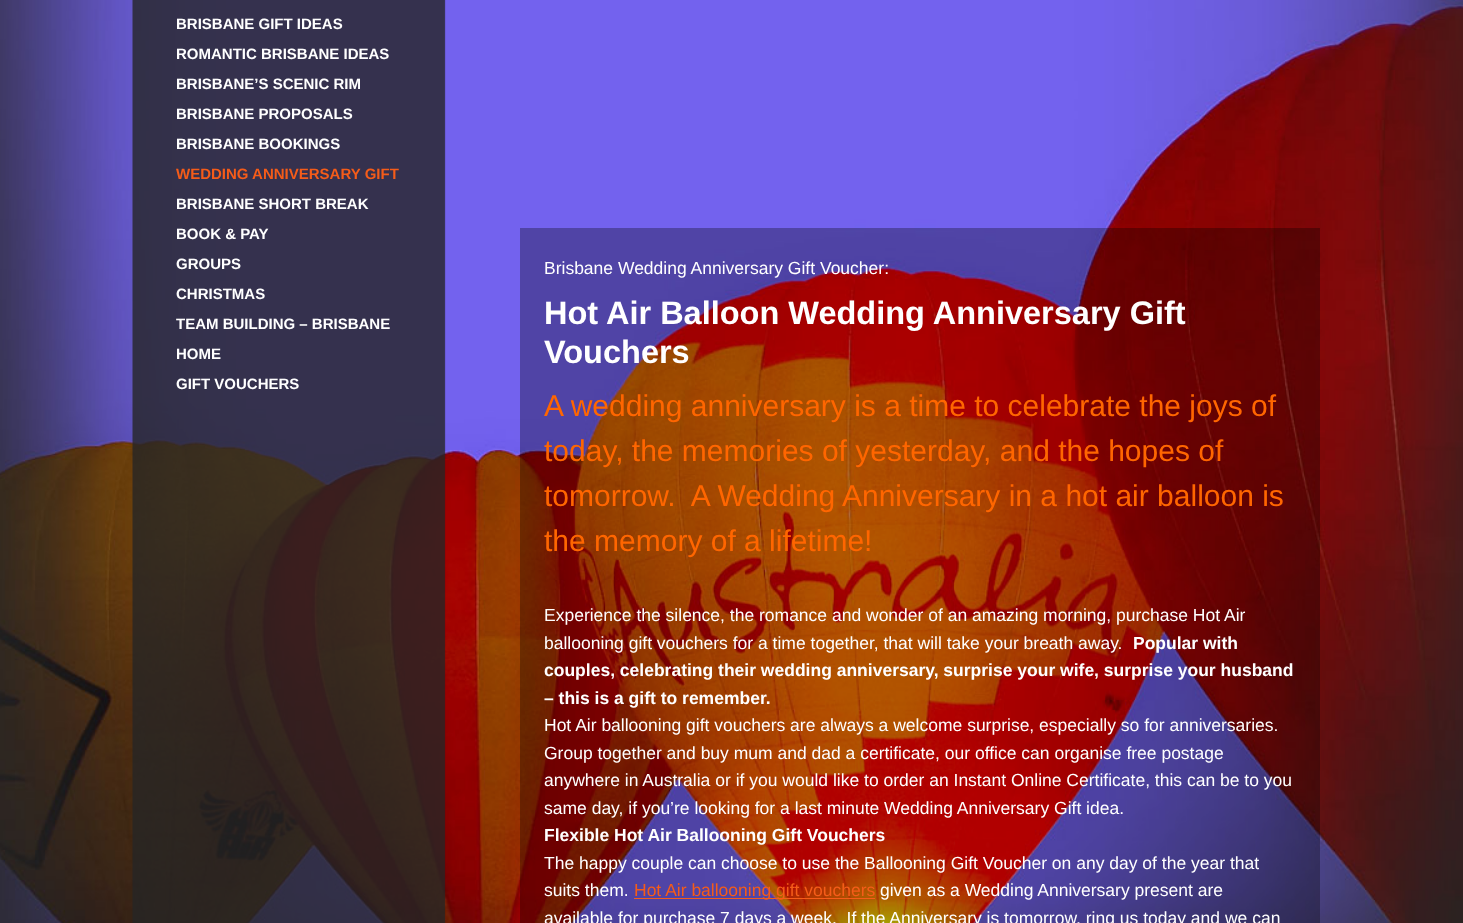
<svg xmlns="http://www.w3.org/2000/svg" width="1463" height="923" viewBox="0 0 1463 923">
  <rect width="100%" height="100%" fill="#fff"/>
  <image x="0" y="0" width="1463" height="923" href="img/1.png"/>
  <image x="132" y="0" width="314" height="923" href="img/2.png"/>
  <path d="M520 228h800v695H520z" fill="#0000004d"/>
  <path d="M634 898h241v1H634z" fill="#f55c19"/>
  <g font-family="Liberation Sans" font-size="15" font-weight="bold" fill="#fff">
    <text x="176" y="29">BRISBANE GIFT IDEAS</text>
    <text x="176" y="59">ROMANTIC BRISBANE IDEAS</text>
    <text x="176" y="89">BRISBANE’S SCENIC RIM</text>
    <text x="176" y="119">BRISBANE PROPOSALS</text>
    <text x="176" y="149">BRISBANE BOOKINGS</text>
  </g>
  <text x="176" y="179" font-family="Liberation Sans" font-size="15" font-weight="bold" fill="#f55c19">WEDDING ANNIVERSARY GIFT</text>
  <g font-family="Liberation Sans" font-size="15" font-weight="bold" fill="#fff">
    <text x="176" y="209">BRISBANE SHORT BREAK</text>
    <text x="176" y="239">BOOK &amp; PAY</text>
    <text x="176" y="269">GROUPS</text>
    <text x="176" y="299">CHRISTMAS</text>
    <text x="176" y="329">TEAM BUILDING – BRISBANE</text>
    <text x="176" y="359">HOME</text>
    <text x="176" y="389">GIFT VOUCHERS</text>
  </g>
  <text x="544" y="274" font-family="Liberation Sans" font-size="17.5" fill="#fff">Brisbane Wedding Anniversary Gift Voucher:</text>
  <g font-family="Liberation Sans" font-size="32.5" font-weight="bold" fill="#fff">
    <text x="544" y="324">Hot Air Balloon Wedding Anniversary Gift</text>
    <text x="544" y="363">Vouchers</text>
  </g>
  <g font-family="Liberation Sans" font-size="30" fill="#f60">
    <text x="544" y="416">A wedding anniversary is a time to celebrate the joys of</text>
    <text x="544" y="461">today, the memories of yesterday, and the hopes of</text>
    <text x="544" y="506" xml:space="preserve">tomorrow.  A Wedding Anniversary in a hot air balloon is</text>
    <text x="544" y="551">the memory of a lifetime!</text>
  </g>
  <g font-family="Liberation Sans" font-size="17.5" fill="#fff">
    <text x="544" y="621">Experience the silence, the romance and wonder of an amazing morning, purchase Hot Air</text>
    <text x="544" y="649">ballooning gift vouchers for a time together, that will take your breath away.</text>
  </g>
  <g font-family="Liberation Sans" font-size="17.5" font-weight="bold" fill="#fff">
    <text x="1133" y="649">Popular with</text>
    <text x="544" y="676">couples, celebrating their wedding anniversary, surprise your wife, surprise your husband</text>
    <text x="544" y="704">– this is a gift to remember.</text>
  </g>
  <g font-family="Liberation Sans" font-size="17.5" fill="#fff">
    <text x="544" y="731">Hot Air ballooning gift vouchers are always a welcome surprise, especially so for anniversaries.</text>
    <text x="544" y="759">Group together and buy mum and dad a certificate, our office can organise free postage</text>
    <text x="544" y="786">anywhere in Australia or if you would like to order an Instant Online Certificate, this can be to you</text>
    <text x="544" y="814">same day, if you’re looking for a last minute Wedding Anniversary Gift idea.</text>
  </g>
  <text x="544" y="841" font-family="Liberation Sans" font-size="17.5" font-weight="bold" fill="#fff">Flexible Hot Air Ballooning Gift Vouchers</text>
  <g font-family="Liberation Sans" font-size="17.5" fill="#fff">
    <text x="544" y="869">The happy couple can choose to use the Ballooning Gift Voucher on any day of the year that</text>
    <text x="544" y="896">suits them.</text>
  </g>
  <text x="634" y="896" font-family="Liberation Sans" font-size="17.5" fill="#f55c19">Hot Air ballooning gift vouchers</text>
  <g font-family="Liberation Sans" font-size="17.5" fill="#fff">
    <text x="880" y="896">given as a Wedding Anniversary present are</text>
    <text x="544" y="924" xml:space="preserve">available for purchase 7 days a week.  If the Anniversary is tomorrow, ring us today and we can</text>
  </g>
</svg>
